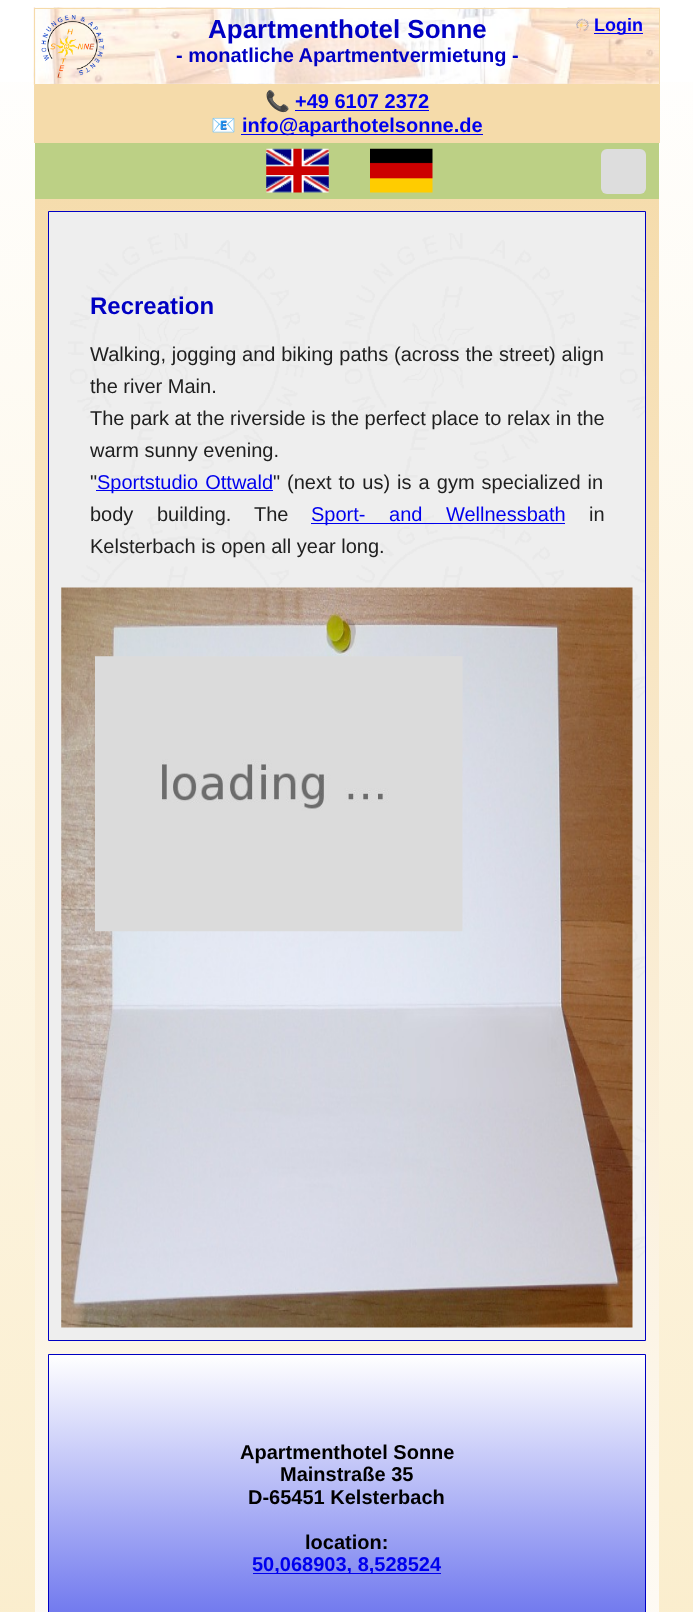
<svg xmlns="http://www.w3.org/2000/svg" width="693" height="1612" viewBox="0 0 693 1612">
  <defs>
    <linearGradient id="g1" gradientUnits="userSpaceOnUse" x1="347" y1="0" x2="347" y2="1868"><stop offset="0" stop-color="#fff"/><stop offset="1" stop-color="#faebc6"/></linearGradient>
    <linearGradient id="g2" gradientUnits="userSpaceOnUse" x1="347" y1="143" x2="347" y2="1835"><stop offset="0" stop-color="#f5dbaa"/><stop offset="1" stop-color="#fff"/></linearGradient>
    <linearGradient id="g3" gradientUnits="userSpaceOnUse" x1="347" y1="1355" x2="347" y2="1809"><stop offset="0" stop-color="#fff"/><stop offset="0.62" stop-color="#656eed"/></linearGradient>
  </defs>
  <rect width="100%" height="100%" fill="#fff"/>
  <path d="M0 82h693v1530H0z" fill="url(#g1)"/>
  <image x="33" y="7" width="627" height="78" href="img/1.png"/>
  <path d="M34.5 8.5h625v76H34.5z" fill="none" stroke="#f5dbaa"/>
  <image x="41" y="15" width="63" height="63" href="img/2.png"/>
  <image x="576" y="18" width="13" height="14" href="img/3.png"/>
  <path d="M594 33h49v1H594z" fill="#00e"/>
  <path d="M34 85h626v58H34z" fill="#f5dbaa"/>
  <path d="M295 110h134v1H295z" fill="#00e"/>
  <path d="M241 134h242v1H241z" fill="#00e"/>
  <path d="M35 199h624v1413H35z" fill="url(#g2)"/>
  <path d="M35 143h624v56H35z" fill="#bcd085"/>
  <image x="266" y="148" width="63" height="45" href="img/4.png"/>
  <image x="370" y="148" width="63" height="45" href="img/5.png"/>
  <rect x="601" y="149" width="45" height="45" rx="6" fill="#ddd"/>
  <path d="M49 212h596v1128H49z" fill="#eee"/>
  <image x="68" y="233" width="579" height="1026" href="img/6.png"/>
  <path d="M48.5 211.5h597v1129H48.5z" fill="none" stroke="#0000c3"/>
  <path d="M96 490h177v1H96z" fill="#00e"/>
  <path d="M311 523h254v1H311z" fill="#00e"/>
  <image x="61" y="587" width="572" height="741" href="img/7.png"/>
  <image x="95" y="656" width="368" height="276" href="img/8.png"/>
  <path d="M49 1355h596v257H49z" fill="url(#g3)"/>
  <path d="M48.5 1354.5h597v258H48.5z" fill="none" stroke="#0000c3"/>
  <path d="M253 1573h188v1H253z" fill="#00e"/>
  <text x="208" y="38" font-family="Liberation Sans" font-size="26" font-weight="bold" fill="#0000c3">Apartmenthotel Sonne</text>
  <text x="176" y="62" font-family="Liberation Sans" font-size="20" font-weight="bold" fill="#0000c3">- monatliche Apartmentvermietung -</text>
  <text x="594" y="31" font-family="Liberation Sans" font-size="18" font-weight="bold" fill="#00e">Login</text>
  <text x="265" y="108" font-family="Noto Color Emoji" font-size="20" font-weight="bold" fill="#000">📞</text>
  <text x="295" y="108" font-family="Liberation Sans" font-size="20" font-weight="bold" fill="#00e">+49 6107 2372</text>
  <text x="211" y="132" font-family="Noto Color Emoji" font-size="20" font-weight="bold" fill="#000">📧</text>
  <text x="242" y="132" font-family="Liberation Sans" font-size="20" font-weight="bold" fill="#00e">info@aparthotelsonne.de</text>
  <text x="90" y="314" font-family="Liberation Sans" font-size="24" font-weight="bold" fill="#0000c3">Recreation</text>
  <g font-family="Liberation Sans" font-size="20" fill="#202020">
    <text x="90" y="361" word-spacing="0.25">Walking, jogging and biking paths (across the street) align</text>
    <text x="90" y="393">the river Main.</text>
    <text x="90" y="425">The park at the riverside is the perfect place to relax in the</text>
    <text x="90" y="457">warm sunny evening.</text>
    <text x="90" y="489">"</text>
  </g>
  <text x="97" y="489" word-spacing="1.5" font-family="Liberation Sans" font-size="20" fill="#00e">Sportstudio Ottwald</text>
  <g font-family="Liberation Sans" font-size="20" fill="#202020">
    <text x="273" y="489">"</text>
    <text x="287" y="489" word-spacing="1.5">(next to us) is a gym specialized in</text>
    <text x="90" y="521" word-spacing="18">body building.</text>
    <text x="254" y="521">The</text>
  </g>
  <text x="311" y="521" word-spacing="18" font-family="Liberation Sans" font-size="20" fill="#00e">Sport- and Wellnessbath</text>
  <g font-family="Liberation Sans" font-size="20" fill="#202020">
    <text x="589" y="521">in</text>
    <text x="90" y="553">Kelsterbach is open all year long.</text>
  </g>
  <g font-family="Liberation Sans" font-size="20" font-weight="bold" fill="#000">
    <text x="240" y="1459">Apartmenthotel Sonne</text>
    <text x="280" y="1481">Mainstraße 35</text>
    <text x="248" y="1504">D-65451 Kelsterbach</text>
    <text x="305" y="1549">location:</text>
  </g>
  <text x="252" y="1571" font-family="Liberation Sans" font-size="20" font-weight="bold" fill="#00e">50,068903, 8,528524</text>
</svg>
